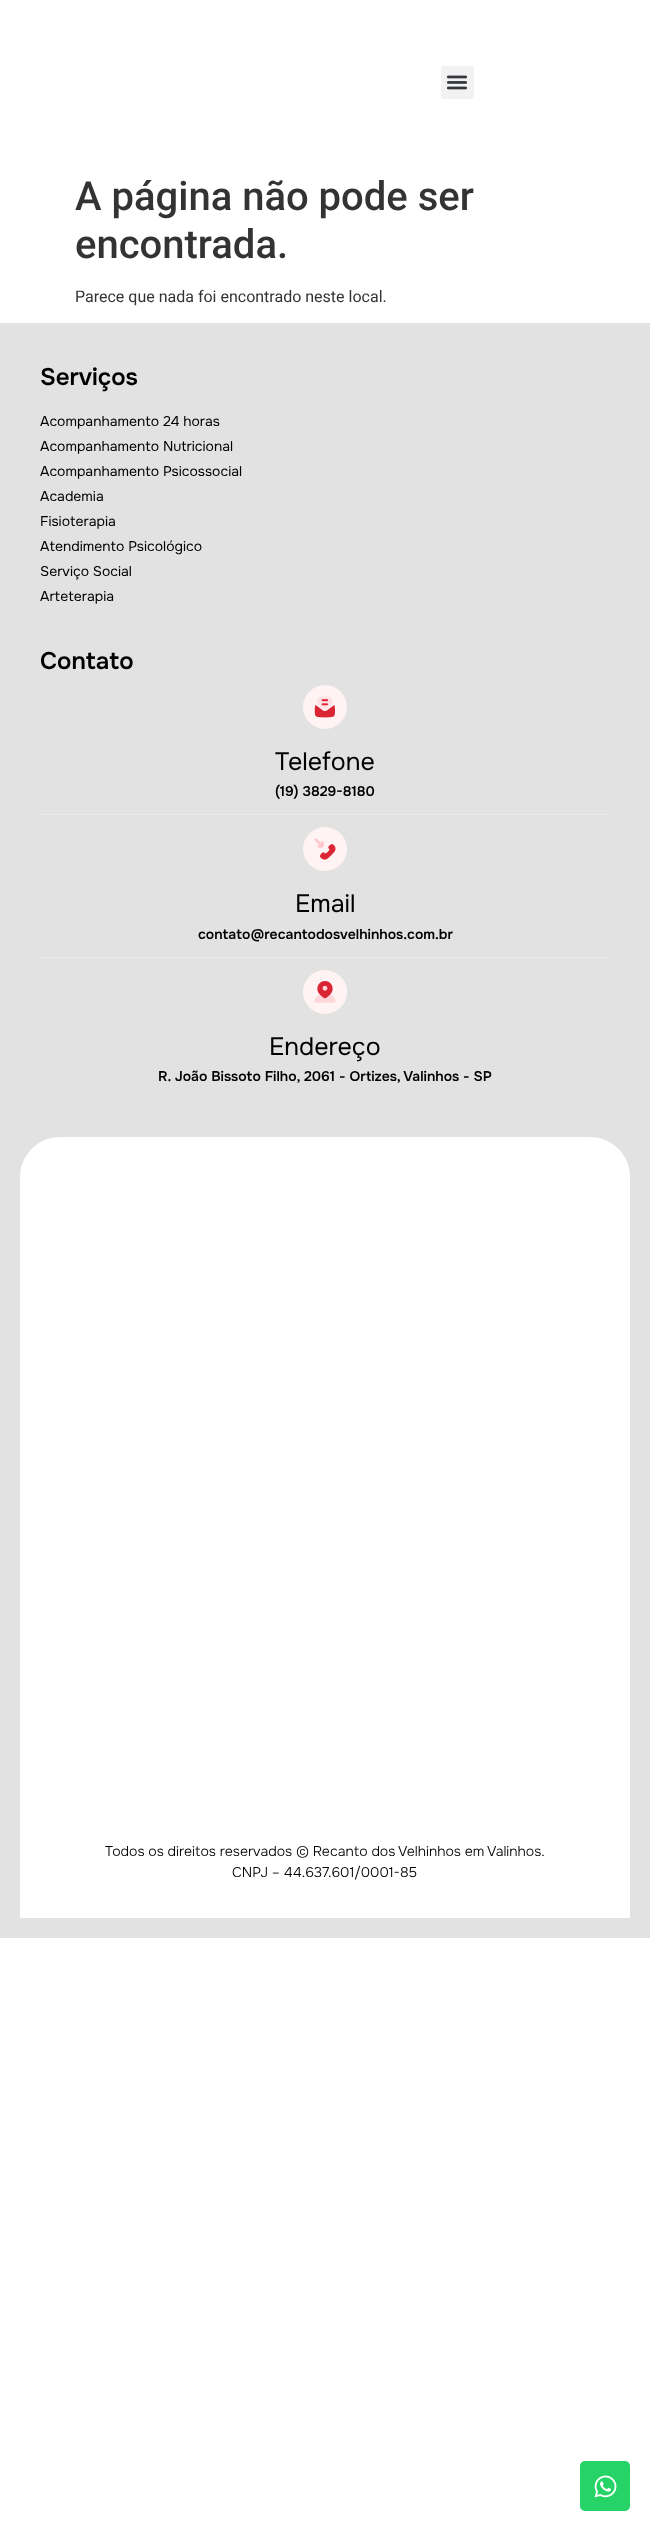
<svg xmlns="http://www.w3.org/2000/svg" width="650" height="2531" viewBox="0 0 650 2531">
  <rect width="100%" height="100%" fill="#fff"/>
  <rect x="441" y="66" width="33" height="33" rx="3" fill="#f2f2f2"/>
  <image x="446" y="75" width="22" height="15" href="img/1.png"/>
  <rect x="580" y="2461" width="50" height="50" rx="5" fill="#25d366"/>
  <image x="594" y="2475" width="23" height="23" href="img/2.png"/>
  <path d="M0 323h650v1615H0z" fill="#e2e2e2"/>
  <circle cx="325" cy="707" r="22" fill="#fff3f4"/>
  <image x="314" y="696" width="22" height="22" href="img/3.png"/>
  <path d="M40 814h570v1H40z" fill="#e9e9e9"/>
  <circle cx="325" cy="849" r="22" fill="#fff3f4"/>
  <image x="314" y="838" width="22" height="22" href="img/4.png"/>
  <path d="M40 957h570v1H40z" fill="#e9e9e9"/>
  <circle cx="325" cy="992" r="22" fill="#fff3f4"/>
  <image x="314" y="981" width="22" height="22" href="img/5.png"/>
  <path d="M60 1137H590C612 1137 630 1155 630 1177V1918H20V1177C20 1155 38 1137 60 1137Z" fill="#fff"/>
  <g font-family="Roboto" font-size="40" font-weight="500" fill="#333">
    <text x="75" y="210">A página não pode ser</text>
    <text x="75" y="258">encontrada.</text>
  </g>
  <text x="75" y="302" font-family="Roboto" font-size="16" fill="#333">Parece que nada foi encontrado neste local.</text>
  <text x="40" y="385" font-family="Onest" font-size="24" font-weight="600" fill="#000">Serviços</text>
  <g font-family="Onest" font-size="14" fill="#000">
    <text x="40" y="426">Acompanhamento 24 horas</text>
    <text x="40" y="451">Acompanhamento Nutricional</text>
    <text x="40" y="476">Acompanhamento Psicossocial</text>
    <text x="40" y="501">Academia</text>
    <text x="40" y="526">Fisioterapia</text>
    <text x="40" y="551">Atendimento Psicológico</text>
    <text x="40" y="576">Serviço Social</text>
    <text x="40" y="601">Arteterapia</text>
  </g>
  <text x="40" y="669" font-family="Onest" font-size="24" font-weight="600" fill="#000">Contato</text>
  <text x="275" y="770" font-family="Onest" font-size="25" fill="#000">Telefone</text>
  <text x="275" y="796" font-family="Onest" font-size="14" font-weight="600" fill="#000">(19) 3829-8180</text>
  <text x="295" y="912" font-family="Onest" font-size="25" fill="#000">Email</text>
  <text x="198" y="939" font-family="Onest" font-size="14" font-weight="600" fill="#000">contato@recantodosvelhinhos.com.br</text>
  <text x="269" y="1055" font-family="Onest" font-size="25" fill="#000">Endereço</text>
  <text x="158" y="1081" font-family="Onest" font-size="14" font-weight="600" fill="#000">R. João Bissoto Filho, 2061 - Ortizes, Valinhos - SP</text>
  <g font-family="Onest" font-size="14" font-weight="300" fill="#000">
    <text x="105" y="1856">Todos os direitos reservados © Recanto dos Velhinhos em Valinhos.</text>
    <text x="232" y="1877">CNPJ – 44.637.601/0001-85</text>
  </g>
</svg>
